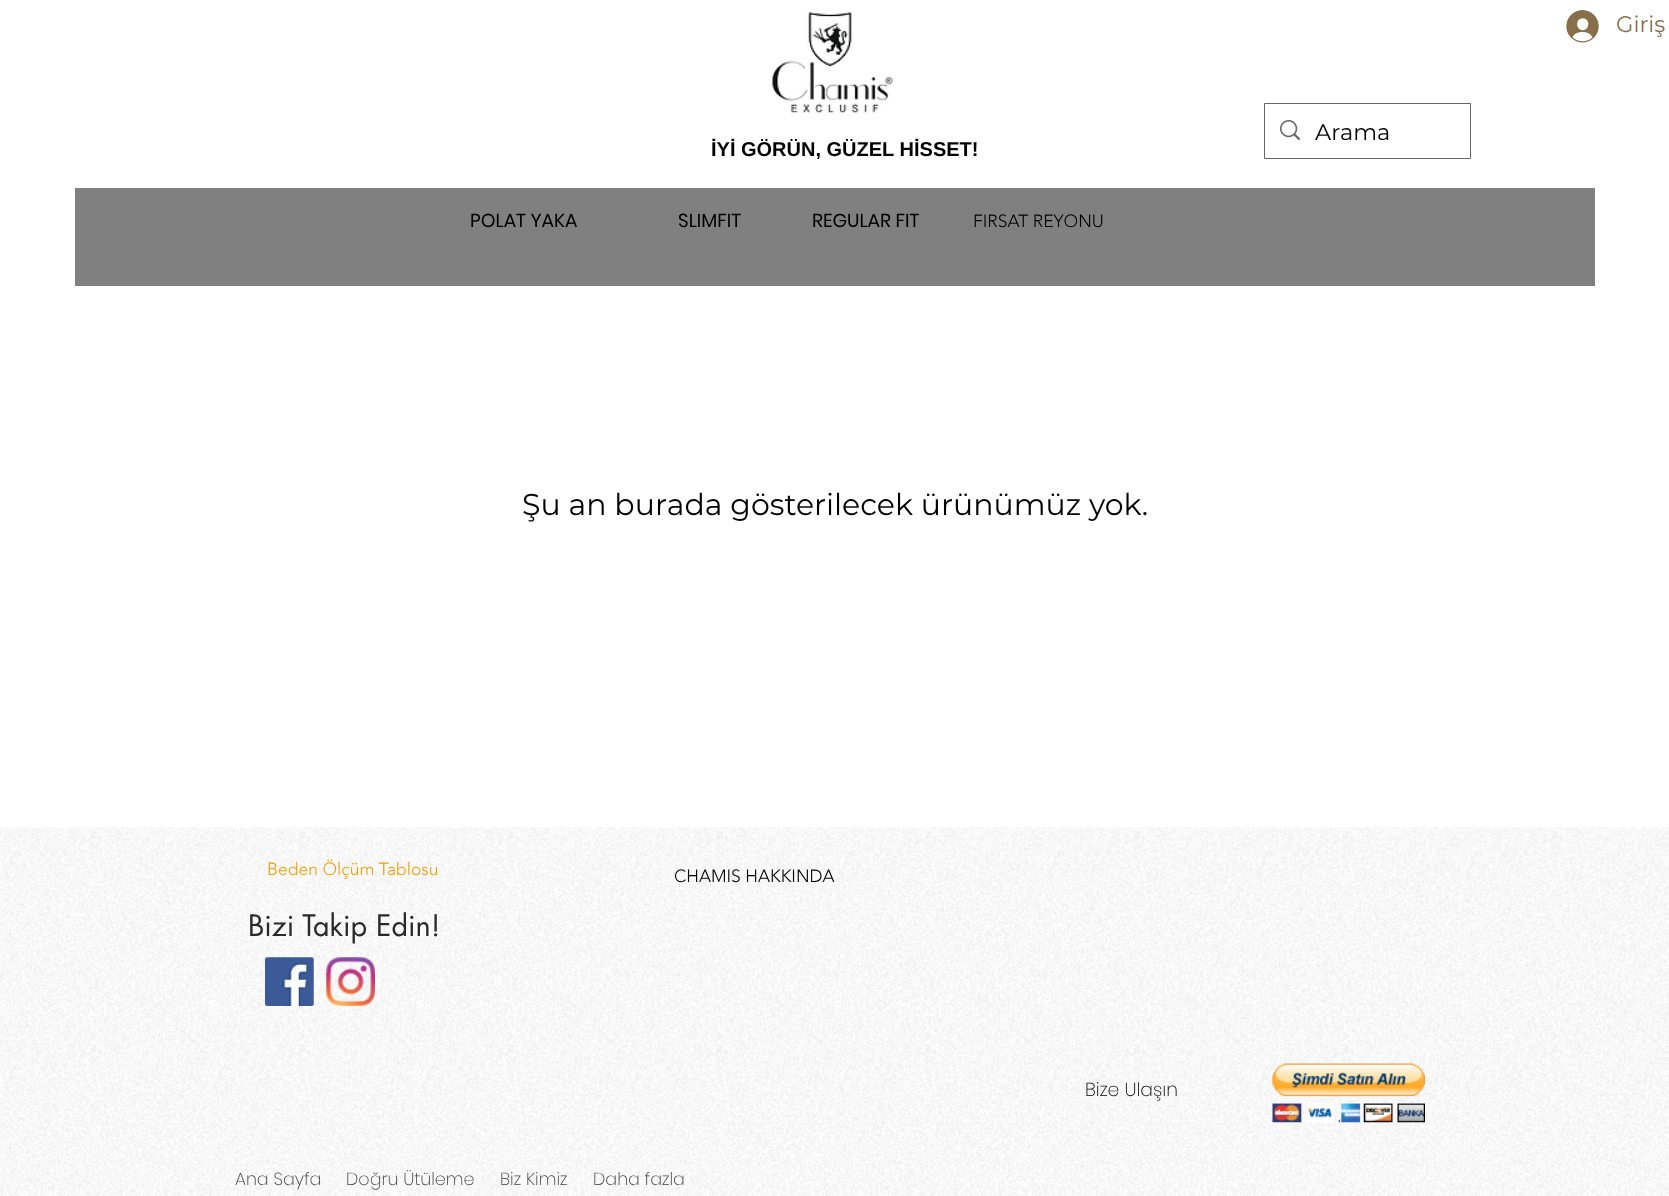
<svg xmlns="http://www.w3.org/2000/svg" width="1669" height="1196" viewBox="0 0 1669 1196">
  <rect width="100%" height="100%" fill="#fff"/>
  <image x="1566" y="10" width="33" height="33" href="img/1.png"/>
  <path d="M1264.5 103.5h206v55H1264.5z" fill="none" stroke="#666"/>
  <image x="1280" y="120" width="20" height="21" href="img/2.png"/>
  <image x="772" y="12" width="121" height="101" href="img/3.png"/>
  <path d="M75 188h1520v98H75z" fill="#808080"/>
  <image x="0" y="827" width="1669" height="369" href="img/4.png"/>
  <image x="265" y="957" width="49" height="49" href="img/5.png"/>
  <image x="326" y="957" width="49" height="49" href="img/6.png"/>
  <image x="1272" y="1063" width="153" height="60" href="img/7.png"/>
  <text x="1616" y="32" font-family="Montserrat" font-size="22.5" fill="#886f4a">Giriş</text>
  <text x="1315" y="140" font-family="Montserrat" font-size="22.5" fill="#000">Arama</text>
  <text x="711" y="156" font-family="Liberation Sans" font-size="20" font-weight="bold" fill="#000">İYİ GÖRÜN, GÜZEL HİSSET!</text>
  <g font-family="Poppins" font-size="18.75" fill="#000">
    <text x="470" y="227">POLAT YAKA</text>
    <text x="678" y="227">SLIMFIT</text>
    <text x="812" y="227">REGULAR FIT</text>
  </g>
  <text x="973" y="227" font-family="'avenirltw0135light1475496'" font-size="17.5" font-weight="300" fill="#000">FIRSAT REYONU</text>
  <text x="522" y="515" font-family="Montserrat" font-size="30" fill="#000">Şu an burada gösterilecek ürünümüz yok.</text>
  <text x="267" y="875" font-family="'avenirltw0135light1475496'" font-size="17.5" font-weight="300" fill="#f19e00">Beden Ölçüm Tablosu</text>
  <text x="674" y="882" font-family="'avenirltw0135light1475496'" font-size="17.5" font-weight="300" fill="#000">CHAMIS HAKKINDA</text>
  <text x="248" y="936" font-family="futura" font-size="28.75" fill="#292929">Bizi Takip Edin!</text>
  <text x="1085" y="1096" font-family="Poppins" font-size="18.75" font-weight="200" fill="#000">Bize Ulaşın</text>
  <g font-family="Poppins" font-size="17.5" font-weight="200" fill="#404040">
    <text x="235" y="1185">Ana Sayfa</text>
    <text x="346" y="1185">Doğru Ütüleme</text>
    <text x="500" y="1185">Biz Kimiz</text>
    <text x="593" y="1185">Daha fazla</text>
  </g>
</svg>
